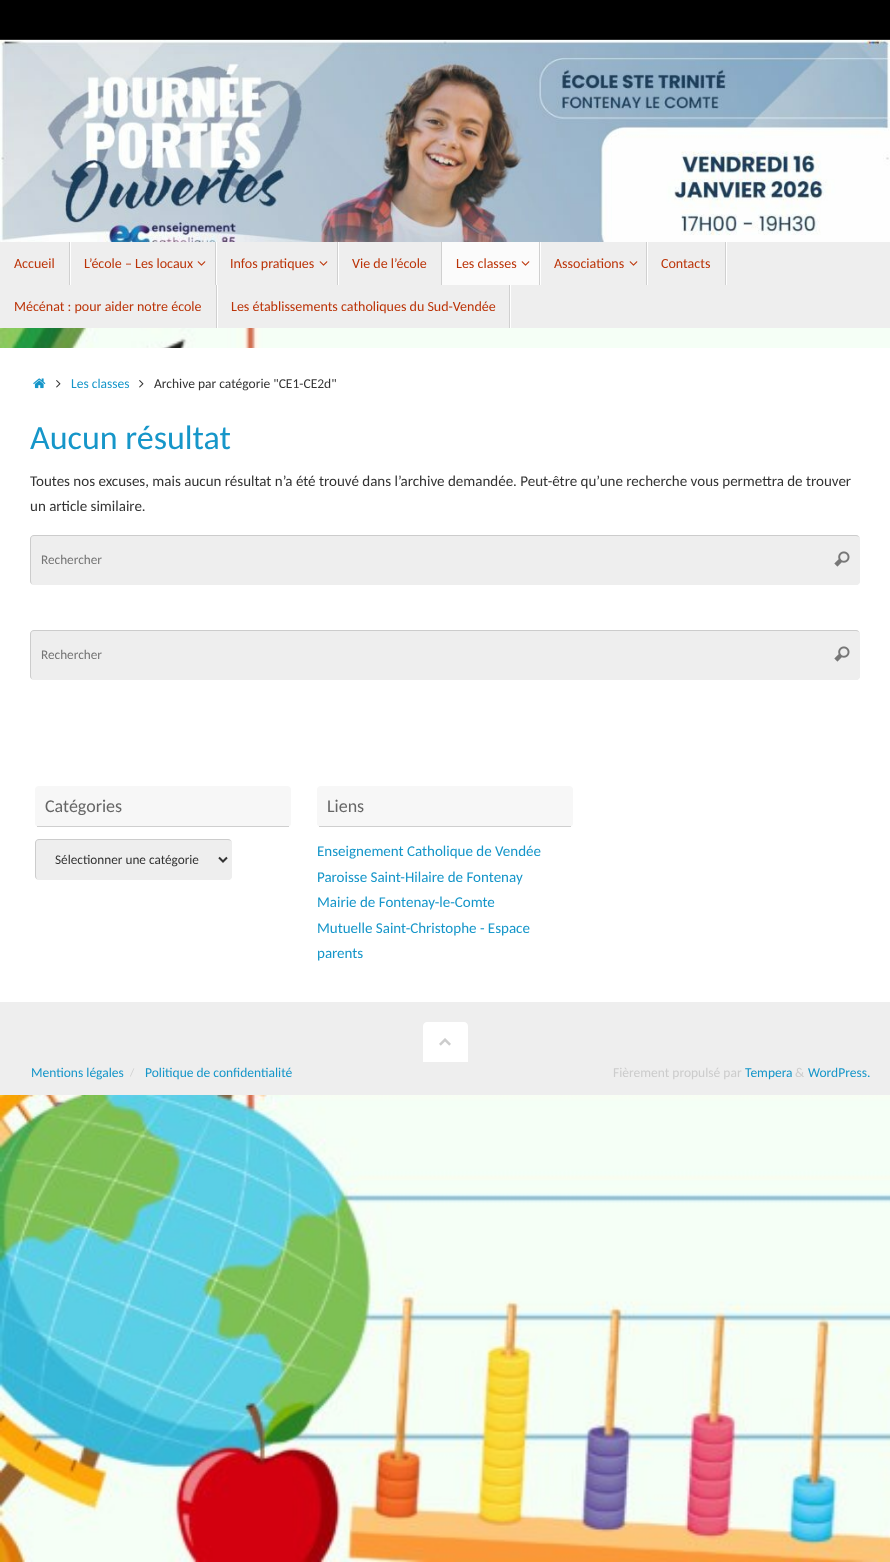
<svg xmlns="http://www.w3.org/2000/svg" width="890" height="1562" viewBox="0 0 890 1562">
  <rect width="100%" height="100%" fill="#fff"/>
  <image x="0" y="328" width="890" height="1234" href="img/1.png"/>
  <path d="M0 0h890v39H0z" fill="#000"/>
  <path d="M0 39h890v1H0z" fill="#282828"/>
  <image x="0" y="40" width="890" height="202" href="img/2.png"/>
  <path d="M0 242h890v86H0z" fill="#eee"/>
  <path d="M70 242h1v43H70z" fill="#fff"/>
  <path d="M69 242h1v43H69z" fill="#d0d0d0"/>
  <path d="M216 242h1v43H216z" fill="#fff"/>
  <path d="M215 242h1v43H215z" fill="#d0d0d0"/>
  <image x="197" y="261" width="9" height="5" href="img/3.png"/>
  <path d="M338 242h1v43H338z" fill="#fff"/>
  <path d="M337 242h1v43H337z" fill="#d0d0d0"/>
  <image x="319" y="261" width="9" height="5" href="img/3.png"/>
  <path d="M441 242h1v43H441z" fill="#d0d0d0"/>
  <path d="M442 242h97v43H442z" fill="#fbfbfb"/>
  <path d="M540 242h1v43H540z" fill="#fff"/>
  <path d="M539 242h1v43H539z" fill="#d0d0d0"/>
  <image x="521" y="261" width="9" height="5" href="img/4.png"/>
  <path d="M647 242h1v43H647z" fill="#fff"/>
  <path d="M646 242h1v43H646z" fill="#d0d0d0"/>
  <image x="629" y="261" width="9" height="5" href="img/3.png"/>
  <path d="M726 242h1v43H726z" fill="#fff"/>
  <path d="M725 242h1v43H725z" fill="#d0d0d0"/>
  <path d="M217 285h1v43H217z" fill="#fff"/>
  <path d="M216 285h1v43H216z" fill="#d0d0d0"/>
  <path d="M510 285h1v43H510z" fill="#fff"/>
  <path d="M509 285h1v43H509z" fill="#d0d0d0"/>
  <path d="M0 348h890v654H0z" fill="#fff"/>
  <image x="33" y="378" width="13" height="11" href="img/5.png"/>
  <image x="56" y="380" width="5" height="8" href="img/6.png"/>
  <image x="139" y="380" width="5" height="8" href="img/6.png"/>
  <rect x="30" y="535" width="830" height="50" rx="4" fill="#eee"/>
  <path d="M858.5 536.5C859 537 859.5 538 859.5 539V581C859.5 582 859 583 858.5 583.5C858 584 857 584.5 856 584.5H34C33 584.5 32 584 31.5 583.5" fill="none" stroke="#eee"/>
  <path d="M31.5 583.5C31 583 30.5 582 30.5 581V539C30.5 538 31 537 31.5 536.5C32 536 33 535.5 34 535.5H856C857 535.5 858 536 858.5 536.5" fill="none" stroke="#ccc"/>
  <image x="834" y="551" width="16" height="16" href="img/7.png"/>
  <rect x="30" y="630" width="830" height="50" rx="4" fill="#eee"/>
  <path d="M858.5 631.5C859 632 859.5 633 859.5 634V676C859.5 677 859 678 858.5 678.5C858 679 857 679.5 856 679.5H34C33 679.5 32 679 31.5 678.5" fill="none" stroke="#eee"/>
  <path d="M31.5 678.5C31 678 30.5 677 30.5 676V634C30.5 633 31 632 31.5 631.5C32 631 33 630.5 34 630.5H856C857 630.5 858 631 858.5 631.5" fill="none" stroke="#ccc"/>
  <image x="834" y="646" width="16" height="16" href="img/7.png"/>
  <rect x="35" y="786" width="256" height="41" rx="4" fill="#f7f7f7"/>
  <path d="M37 826h252v1H37z" fill="#cfcfcf"/>
  <rect x="35" y="839" width="197" height="41" rx="4" fill="#eee"/>
  <path d="M230.5 840.5C231 841 231.5 842 231.5 843V876C231.5 877 231 878 230.5 878.5C230 879 229 879.5 228 879.5H39C38 879.5 37 879 36.5 878.5" fill="none" stroke="#eee"/>
  <path d="M36.5 878.5C36 878 35.5 877 35.5 876V843C35.5 842 36 841 36.5 840.5C37 840 38 839.5 39 839.5H228C229 839.5 230 840 230.5 840.5" fill="none" stroke="#ccc"/>
  <path d="M219 857.5L223 861.5L227 857.5" fill="none" stroke="#333" stroke-width="2"/>
  <rect x="317" y="786" width="256" height="41" rx="4" fill="#f7f7f7"/>
  <path d="M319 826h252v1H319z" fill="#cfcfcf"/>
  <path d="M0 1002h890v93H0z" fill="#eee"/>
  <path d="M427 1022H464C466 1022 468 1024 468 1026V1062H423V1026C423 1024 425 1022 427 1022Z" fill="#fff"/>
  <image x="439" y="1038" width="12" height="8" href="img/8.png"/>
  <g font-family="Carlito" font-size="14" fill="#bb3307">
    <text x="14" y="268">Accueil</text>
    <text x="84" y="268">L’école – Les locaux</text>
    <text x="230" y="268">Infos pratiques</text>
    <text x="352" y="268">Vie de l’école</text>
    <text x="456" y="268">Les classes</text>
    <text x="554" y="268">Associations</text>
    <text x="661" y="268">Contacts</text>
    <text x="14" y="311">Mécénat : pour aider notre école</text>
    <text x="231" y="311">Les établissements catholiques du Sud-Vendée</text>
  </g>
  <text x="71" y="388" font-family="Carlito" font-size="13.5" fill="#1696c9">Les classes</text>
  <text x="154" y="388" font-family="Carlito" font-size="13.5" fill="#333">Archive par catégorie "CE1-CE2d"</text>
  <text x="30" y="449" font-family="Carlito" font-size="34" fill="#1696c9">Aucun résultat</text>
  <g font-family="Carlito" font-size="15" fill="#333">
    <text x="30" y="486">Toutes nos excuses, mais aucun résultat n’a été trouvé dans l’archive demandée. Peut-être qu’une recherche vous permettra de trouver</text>
    <text x="30" y="511">un article similaire.</text>
  </g>
  <g font-family="Carlito" font-size="13.25" fill="#757575">
    <text x="41" y="564">Rechercher</text>
    <text x="41" y="659">Rechercher</text>
  </g>
  <text x="45" y="812" font-family="Carlito" font-size="18" fill="#666">Catégories</text>
  <text x="55" y="864" font-family="Carlito" font-size="13.25" fill="#333">Sélectionner une catégorie</text>
  <text x="327" y="812" font-family="Carlito" font-size="18" fill="#666">Liens</text>
  <g font-family="Carlito" font-size="15" fill="#1696c9">
    <text x="317" y="856">Enseignement Catholique de Vendée</text>
    <text x="317" y="882">Paroisse Saint-Hilaire de Fontenay</text>
    <text x="317" y="907">Mairie de Fontenay-le-Comte</text>
    <text x="317" y="933">Mutuelle Saint-Christophe - Espace</text>
    <text x="317" y="958">parents</text>
  </g>
  <text x="31" y="1077" font-family="Carlito" font-size="13.5" fill="#1696c9">Mentions légales</text>
  <text x="130" y="1076" font-family="Carlito" font-size="11" fill="#ccc">/</text>
  <text x="145" y="1077" font-family="Carlito" font-size="13.5" fill="#1696c9">Politique de confidentialité</text>
  <text x="613" y="1077" font-family="Carlito" font-size="13.5" fill="#ccc">Fièrement propulsé par</text>
  <text x="745" y="1077" font-family="Carlito" font-size="13.5" fill="#1696c9">Tempera</text>
  <text x="795" y="1077" font-family="Carlito" font-size="13.5" fill="#ccc">&amp;</text>
  <text x="808" y="1077" font-family="Carlito" font-size="13.5" fill="#1696c9">WordPress.</text>
</svg>
